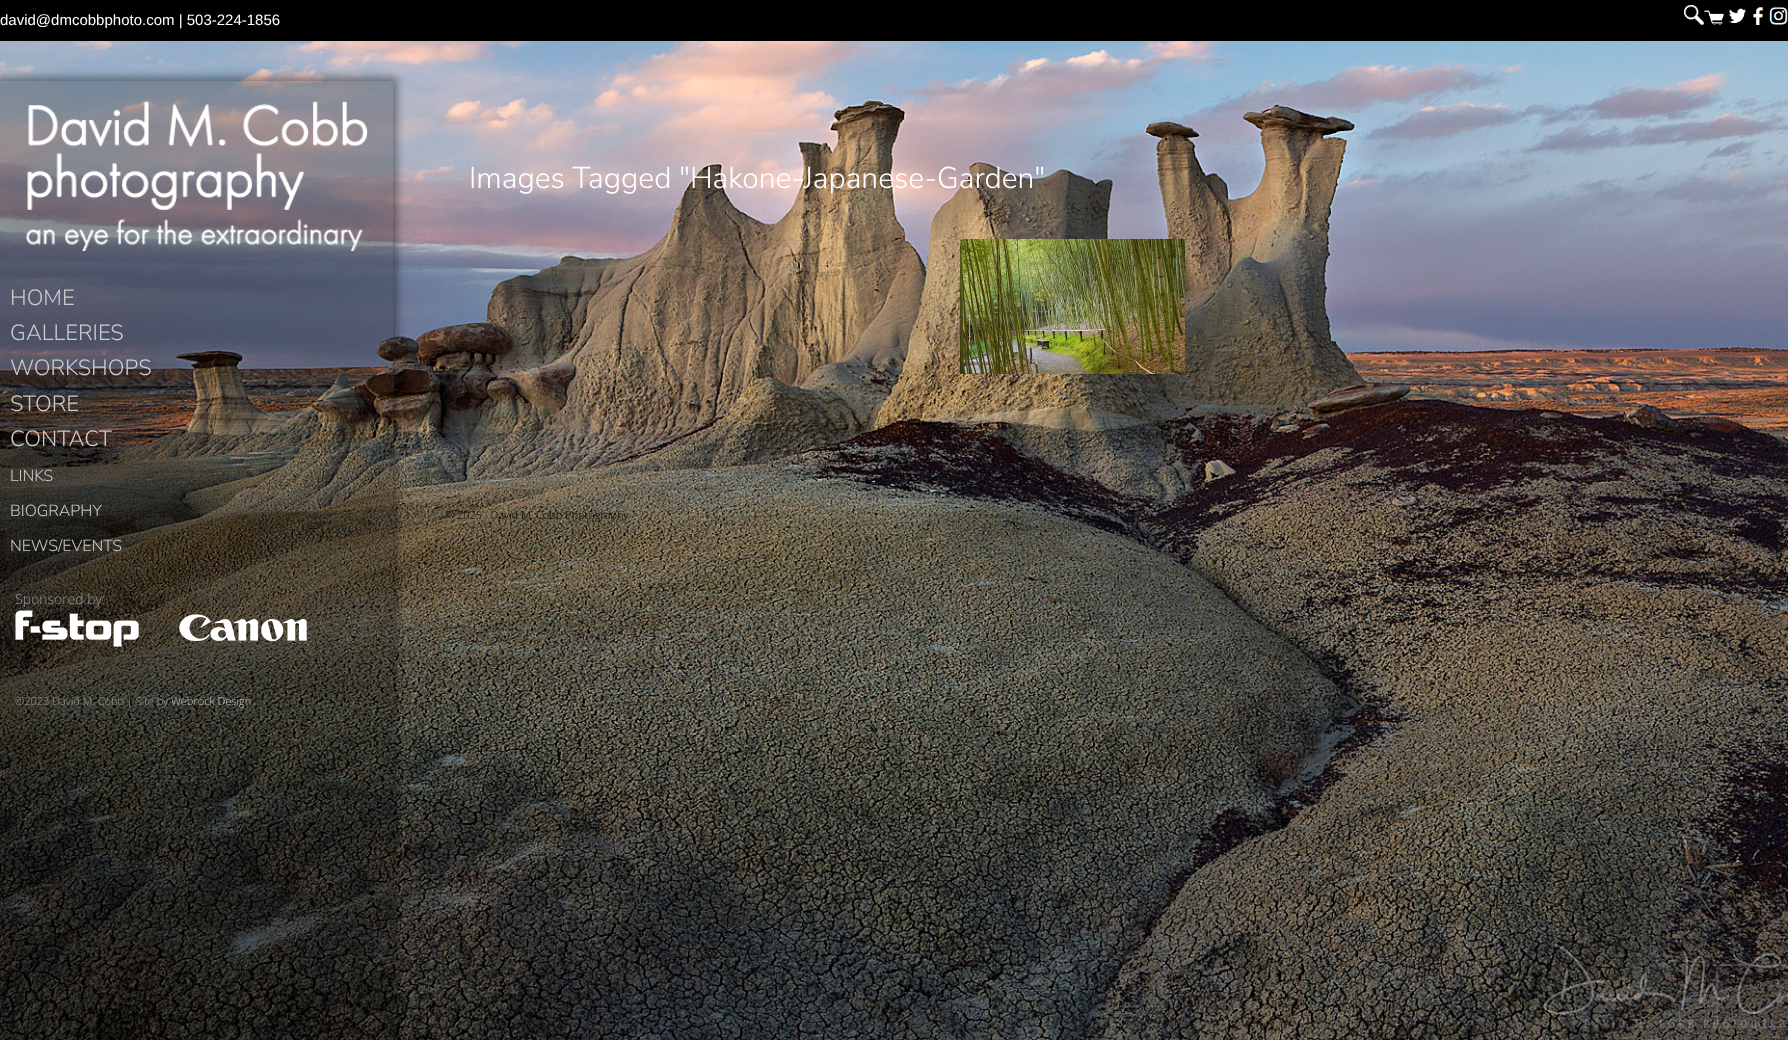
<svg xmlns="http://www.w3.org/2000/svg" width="1788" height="1040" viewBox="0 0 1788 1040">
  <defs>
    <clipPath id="clip1"><path d="M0 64H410V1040H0ZM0 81H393V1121H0Z" clip-rule="evenodd"/></clipPath>
    <clipPath id="clip2"><path d="M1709 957H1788V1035H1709ZM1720 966H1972C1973 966 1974 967 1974 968V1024C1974 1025 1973 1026 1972 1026H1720C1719 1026 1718 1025 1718 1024V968C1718 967 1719 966 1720 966Z" clip-rule="evenodd"/></clipPath>
  </defs>
  <rect width="100%" height="100%" fill="#fff"/>
  <image x="0" y="41" width="1788" height="999" href="img/1.png"/>
  <path d="M0 0h1788v41H0z" fill="#000"/>
  <image x="1684" y="5" width="20" height="20" href="img/2.png"/>
  <image x="1704" y="10" width="20" height="15" href="img/3.png"/>
  <image x="1729" y="8" width="17" height="16" href="img/4.png"/>
  <image x="1753" y="7" width="11" height="18" href="img/5.png"/>
  <image x="1769" y="7" width="19" height="18" href="img/6.png"/>
  <g clip-path="url(#clip1)">
    <path d="M-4 77h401v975H-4z" fill="#00000066" filter="blur(4px)"/>
  </g>
  <path d="M0 81h393v959H0z" fill="#0000003b"/>
  <image x="26" y="101" width="342" height="150" href="img/7.png"/>
  <image x="15" y="610" width="292" height="37" href="img/8.png"/>
  <image x="960" y="239" width="225" height="135" href="img/9.png"/>
  <g clip-path="url(#clip2)">
    <rect x="1718" y="966" width="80" height="60" rx="2" fill="#808080" filter="blur(2.5px)"/>
  </g>
  <text x="0" y="25" font-family="Liberation Sans" font-size="15" fill="#fff">david@dmcobbphoto.com | 503-224-1856</text>
  <g font-family="Nunito Sans" font-size="22" font-weight="300" fill="#ccc">
    <text x="10" y="305">HOME</text>
    <text x="10" y="340">GALLERIES</text>
    <text x="10" y="375">WORKSHOPS</text>
    <text x="10" y="411">STORE</text>
    <text x="10" y="446">CONTACT</text>
  </g>
  <g font-family="Nunito Sans" font-size="16" font-weight="300" fill="#ccc">
    <text x="10" y="481">LINKS</text>
    <text x="10" y="516">BIOGRAPHY</text>
    <text x="10" y="551">NEWS/EVENTS</text>
  </g>
  <text x="15" y="604" font-family="Open Sans" font-size="14" font-weight="300" fill="#999">Sponsored by:</text>
  <text x="15" y="705" font-family="Open Sans" font-size="11" font-weight="300" fill="#999">©2023 David M. Cobb | Site by</text>
  <text x="171" y="705" font-family="Open Sans" font-size="11" font-weight="300" fill="#ccc">Webrock Design</text>
  <text x="469" y="188" font-family="Nunito Sans" font-size="30" font-weight="300" fill="#fff">Images Tagged "Hakone-Japanese-Garden"</text>
  <text x="445" y="519" font-family="Open Sans" font-size="11" font-weight="300" fill="#000">© 2025 · David M. Cobb Photography</text>
</svg>
